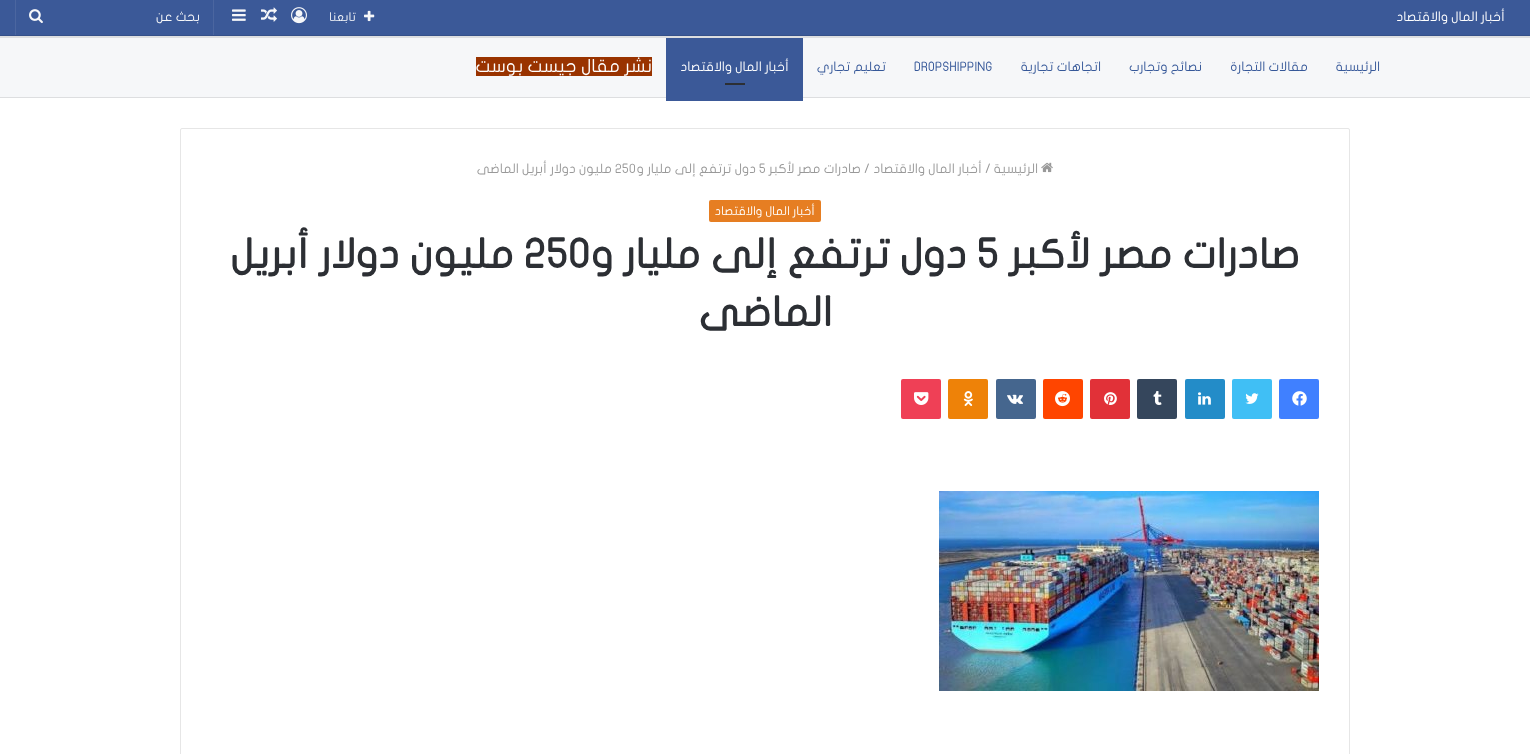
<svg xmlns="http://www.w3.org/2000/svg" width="1530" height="754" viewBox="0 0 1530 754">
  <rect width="100%" height="100%" fill="#fff"/>
  <path d="M0 0h1530v35H0z" fill="#3b5998"/>
  <path d="M0 35h1530v1H0z" fill="#355089"/>
  <image x="364" y="10" width="11" height="12" href="img/1.png"/>
  <image x="291" y="7" width="16" height="17" href="img/2.png"/>
  <image x="261" y="7" width="16" height="15" href="img/3.png"/>
  <image x="232" y="9" width="14" height="12" href="img/4.png"/>
  <path d="M213 0h1v35H213z" fill="#4b66a0"/>
  <path d="M15 0h1v35H15z" fill="#4b66a0"/>
  <image x="29" y="9" width="14" height="15" href="img/5.png"/>
  <path d="M0 38h1530v59H0z" fill="#f6f7f9"/>
  <path d="M0 36h1530v2H0z" fill="#dddee0"/>
  <path d="M0 97h1530v1H0z" fill="#dddee0"/>
  <path d="M666 38h137v63H666z" fill="#3b5998"/>
  <path d="M725 83h20v2H725z" fill="#2c2f34"/>
  <path d="M476 57h176v19H476z" fill="#930"/>
  <rect x="180.5" y="128.5" width="1169" height="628" rx="1.5" fill="none" stroke="#e6e6e6"/>
  <image x="1041" y="162" width="12" height="11" href="img/6.png"/>
  <rect x="709" y="200" width="112" height="22" rx="2" fill="#e67e22"/>
  <rect x="1279" y="379" width="40" height="40" rx="2" fill="#4080ff"/>
  <image x="1292" y="391" width="15" height="15" href="img/7.png"/>
  <rect x="1232" y="379" width="40" height="40" rx="2" fill="#40bff5"/>
  <image x="1245" y="393" width="14" height="11" href="img/8.png"/>
  <rect x="1185" y="379" width="40" height="40" rx="2" fill="#238cc8"/>
  <image x="1198" y="392" width="13" height="13" href="img/9.png"/>
  <rect x="1137" y="379" width="40" height="40" rx="2" fill="#35465c"/>
  <image x="1153" y="391" width="9" height="14" href="img/10.png"/>
  <rect x="1090" y="379" width="40" height="40" rx="2" fill="#e13138"/>
  <image x="1104" y="392" width="13" height="13" href="img/11.png"/>
  <rect x="1043" y="379" width="40" height="40" rx="2" fill="#ff4500"/>
  <image x="1055" y="391" width="15" height="16" href="img/12.png"/>
  <rect x="996" y="379" width="40" height="40" rx="2" fill="#45668e"/>
  <image x="1007" y="394" width="16" height="10" href="img/13.png"/>
  <rect x="948" y="379" width="40" height="40" rx="2" fill="#ee8208"/>
  <image x="963" y="391" width="10" height="15" href="img/14.png"/>
  <rect x="901" y="379" width="40" height="40" rx="2" fill="#ef4056"/>
  <image x="914" y="392" width="15" height="13" href="img/15.png"/>
  <image x="939" y="491" width="380" height="200" href="img/16.png"/>
  <text x="1505" y="21" font-family="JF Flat" font-size="13" direction="rtl" fill="#fff">أخبار المال والاقتصاد</text>
  <text x="356" y="21" font-family="JF Flat" font-size="12" direction="rtl" fill="#f6f7f9">تابعنا</text>
  <text x="200" y="21" font-family="JF Flat" font-size="13" direction="rtl" fill="#f6f7f9">بحث عن</text>
  <g font-family="JF Flat" font-size="13" direction="rtl" fill="#365899">
    <text x="1380" y="71">الرئيسية</text>
    <text x="1308" y="71">مقالات التجارة</text>
    <text x="1202" y="71">نصائح وتجارب</text>
    <text x="1101" y="71">اتجاهات تجارية</text>
  </g>
  <text x="914" y="71" font-family="JF Flat" font-size="13" fill="#365899">DROPSHIPPING</text>
  <text x="886" y="71" font-family="JF Flat" font-size="13" direction="rtl" fill="#365899">تعليم تجاري</text>
  <text x="789" y="71" font-family="JF Flat" font-size="13" direction="rtl" fill="#fff">أخبار المال والاقتصاد</text>
  <text x="652" y="72" font-family="JF Flat" font-size="18" direction="rtl" fill="#fff">نشر مقال جيست بوست</text>
  <text x="1038" y="173" font-family="JF Flat" font-size="13" direction="rtl" fill="#999">الرئيسية</text>
  <text x="985" y="173" font-family="JF Flat" font-size="13" fill="#999">/</text>
  <text x="982" y="173" font-family="JF Flat" font-size="13" direction="rtl" fill="#999">أخبار المال والاقتصاد</text>
  <text x="864" y="173" font-family="JF Flat" font-size="13" fill="#999">/</text>
  <text x="861" y="173" font-family="JF Flat" font-size="13" direction="rtl" fill="#999">صادرات مصر لأكبر</text>
  <text x="759" y="173" font-family="JF Flat" font-size="13" fill="#999">5</text>
  <text x="756" y="173" font-family="JF Flat" font-size="13" direction="rtl" fill="#999">دول ترتفع إلى مليار و</text>
  <text x="615" y="173" font-family="JF Flat" font-size="13" fill="#999">250</text>
  <text x="612" y="173" font-family="JF Flat" font-size="13" direction="rtl" fill="#999">مليون دولار أبريل الماضى</text>
  <text x="815" y="215" font-family="JF Flat" font-size="12" direction="rtl" fill="#fff">أخبار المال والاقتصاد</text>
  <text x="1300" y="268" font-family="JF Flat" font-size="41" font-weight="bold" direction="rtl" fill="#2c2f34">صادرات مصر لأكبر</text>
  <text x="977" y="268" font-family="JF Flat" font-size="41" font-weight="bold" fill="#2c2f34">5</text>
  <text x="967" y="268" font-family="JF Flat" font-size="41" font-weight="bold" direction="rtl" fill="#2c2f34">دول ترتفع إلى مليار و</text>
  <text x="524" y="268" font-family="JF Flat" font-size="41" font-weight="bold" fill="#2c2f34">250</text>
  <g font-family="JF Flat" font-size="41" font-weight="bold" direction="rtl" fill="#2c2f34">
    <text x="514" y="268">مليون دولار أبريل</text>
    <text x="832" y="326">الماضى</text>
  </g>
</svg>
